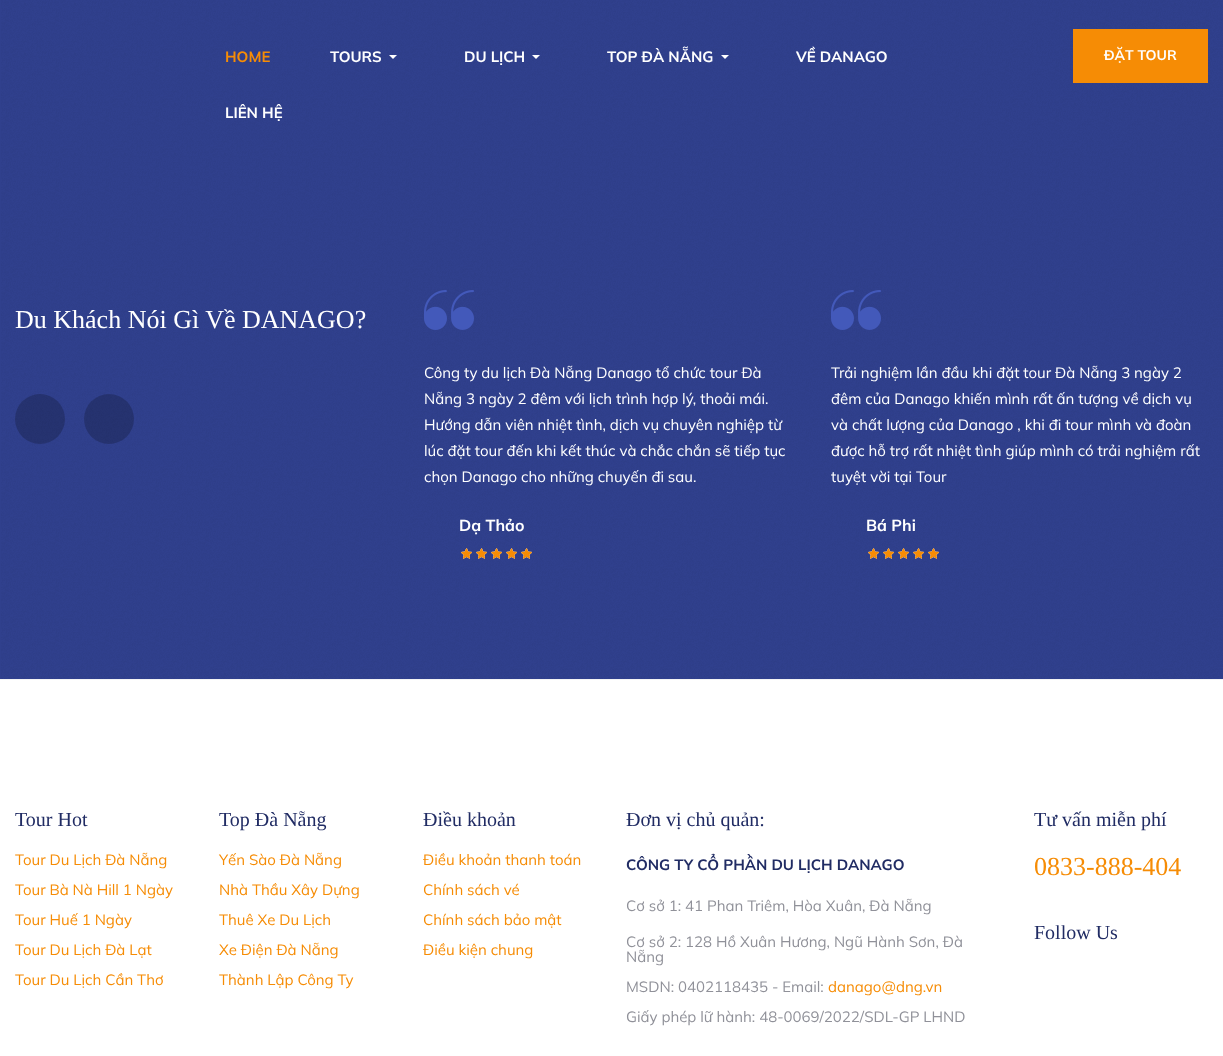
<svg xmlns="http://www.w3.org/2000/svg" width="1223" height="1056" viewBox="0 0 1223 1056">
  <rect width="100%" height="100%" fill="#fff"/>
  <path d="M0 0h1223v679H0z" fill="#30408d"/>
  <image x="1" y="0" width="1222" height="170" href="img/1.png"/>
  <path d="M389 55H397L393 59Z" fill="#fff"/>
  <path d="M532 55H540L536 59Z" fill="#fff"/>
  <path d="M721 55H729L725 59Z" fill="#fff"/>
  <path d="M1073 29h135v54H1073z" fill="#f68c05"/>
  <image x="1" y="170" width="1222" height="509" href="img/2.png"/>
  <circle cx="40" cy="419" r="25" fill="#00000033"/>
  <circle cx="109" cy="419" r="25" fill="#00000033"/>
  <image x="424" y="290" width="50" height="40" href="img/3.png"/>
  <image x="461" y="548" width="71" height="11" href="img/4.png"/>
  <image x="461" y="548" width="71" height="11" href="img/5.png"/>
  <image x="831" y="290" width="50" height="40" href="img/6.png"/>
  <image x="868" y="548" width="71" height="11" href="img/7.png"/>
  <image x="868" y="548" width="71" height="11" href="img/8.png"/>
  <path d="M0 679h1223v1H0z" fill="#f4f4f4"/>
  <text x="225" y="62" font-family="Mulish" font-size="15" font-weight="bold" fill="#f68c05">HOME</text>
  <g font-family="Mulish" font-size="15" font-weight="bold" fill="#fff">
    <text x="330" y="62">TOURS</text>
    <text x="464" y="62">DU LỊCH</text>
    <text x="607" y="62">TOP ĐÀ NẴNG</text>
    <text x="796" y="62">VỀ DANAGO</text>
    <text x="225" y="118">LIÊN HỆ</text>
  </g>
  <text x="1104" y="60" font-family="Mulish" font-size="14" font-weight="bold" fill="#fff">ĐẶT TOUR</text>
  <text x="15" y="328" font-family="Liberation Serif" font-size="26" fill="#fff">Du Khách Nói Gì Về DANAGO?</text>
  <g font-family="Mulish" font-size="15" fill="#fff">
    <text x="424" y="378">Công ty du lịch Đà Nẵng Danago tổ chức tour Đà</text>
    <text x="424" y="404">Nẵng 3 ngày 2 đêm với lịch trình hợp lý, thoải mái.</text>
    <text x="424" y="430">Hướng dẫn viên nhiệt tình, dịch vụ chuyên nghiệp từ</text>
    <text x="424" y="456">lúc đặt tour đến khi kết thúc và chắc chắn sẽ tiếp tục</text>
    <text x="424" y="482">chọn Danago cho những chuyến đi sau.</text>
  </g>
  <text x="459" y="531" font-family="Mulish" font-size="16" font-weight="bold" fill="#fff">Dạ Thảo</text>
  <g font-family="Mulish" font-size="15" fill="#fff">
    <text x="831" y="378">Trải nghiệm lần đầu khi đặt tour Đà Nẵng 3 ngày 2</text>
    <text x="831" y="404">đêm của Danago khiến mình rất ấn tượng về dịch vụ</text>
    <text x="831" y="430">và chất lượng của Danago , khi đi tour mình và đoàn</text>
    <text x="831" y="456">được hỗ trợ rất nhiệt tình giúp mình có trải nghiệm rất</text>
    <text x="831" y="482">tuyệt vời tại Tour</text>
  </g>
  <text x="866" y="531" font-family="Mulish" font-size="16" font-weight="bold" fill="#fff">Bá Phi</text>
  <text x="15" y="826" font-family="Liberation Serif" font-size="20" fill="#212c64">Tour Hot</text>
  <g font-family="Mulish" font-size="15" fill="#f68c05">
    <text x="15" y="865">Tour Du Lịch Đà Nẵng</text>
    <text x="15" y="895">Tour Bà Nà Hill 1 Ngày</text>
    <text x="15" y="925">Tour Huế 1 Ngày</text>
    <text x="15" y="955">Tour Du Lịch Đà Lạt</text>
    <text x="15" y="985">Tour Du Lịch Cần Thơ</text>
  </g>
  <text x="219" y="826" font-family="Liberation Serif" font-size="20" fill="#212c64">Top Đà Nẵng</text>
  <g font-family="Mulish" font-size="15" fill="#f68c05">
    <text x="219" y="865">Yến Sào Đà Nẵng</text>
    <text x="219" y="895">Nhà Thầu Xây Dựng</text>
    <text x="219" y="925">Thuê Xe Du Lịch</text>
    <text x="219" y="955">Xe Điện Đà Nẵng</text>
    <text x="219" y="985">Thành Lập Công Ty</text>
  </g>
  <text x="423" y="826" font-family="Liberation Serif" font-size="20" fill="#212c64">Điều khoản</text>
  <g font-family="Mulish" font-size="15" fill="#f68c05">
    <text x="423" y="865">Điều khoản thanh toán</text>
    <text x="423" y="895">Chính sách vé</text>
    <text x="423" y="925">Chính sách bảo mật</text>
    <text x="423" y="955">Điều kiện chung</text>
  </g>
  <text x="626" y="826" font-family="Liberation Serif" font-size="20" fill="#212c64">Đơn vị chủ quản:</text>
  <text x="626" y="870" font-family="Mulish" font-size="15" font-weight="bold" fill="#212c64">CÔNG TY CỔ PHẦN DU LỊCH DANAGO</text>
  <g font-family="Mulish" font-size="15" fill="#909199">
    <text x="626" y="911">Cơ sở 1: 41 Phan Triêm, Hòa Xuân, Đà Nẵng</text>
    <text x="626" y="947">Cơ sở 2: 128 Hồ Xuân Hương, Ngũ Hành Sơn, Đà</text>
    <text x="626" y="962">Nẵng</text>
    <text x="626" y="992">MSDN: 0402118435 - Email:</text>
  </g>
  <text x="828" y="992" font-family="Mulish" font-size="15" fill="#f68c05">danago@dng.vn</text>
  <text x="626" y="1022" font-family="Mulish" font-size="15" fill="#909199">Giấy phép lữ hành: 48-0069/2022/SDL-GP LHND</text>
  <text x="1034" y="826" font-family="Liberation Serif" font-size="20" fill="#212c64">Tư vấn miễn phí</text>
  <text x="1034" y="875" font-family="Liberation Serif" font-size="26" fill="#f68c05">0833-888-404</text>
  <text x="1034" y="939" font-family="Liberation Serif" font-size="20" fill="#212c64">Follow Us</text>
</svg>
